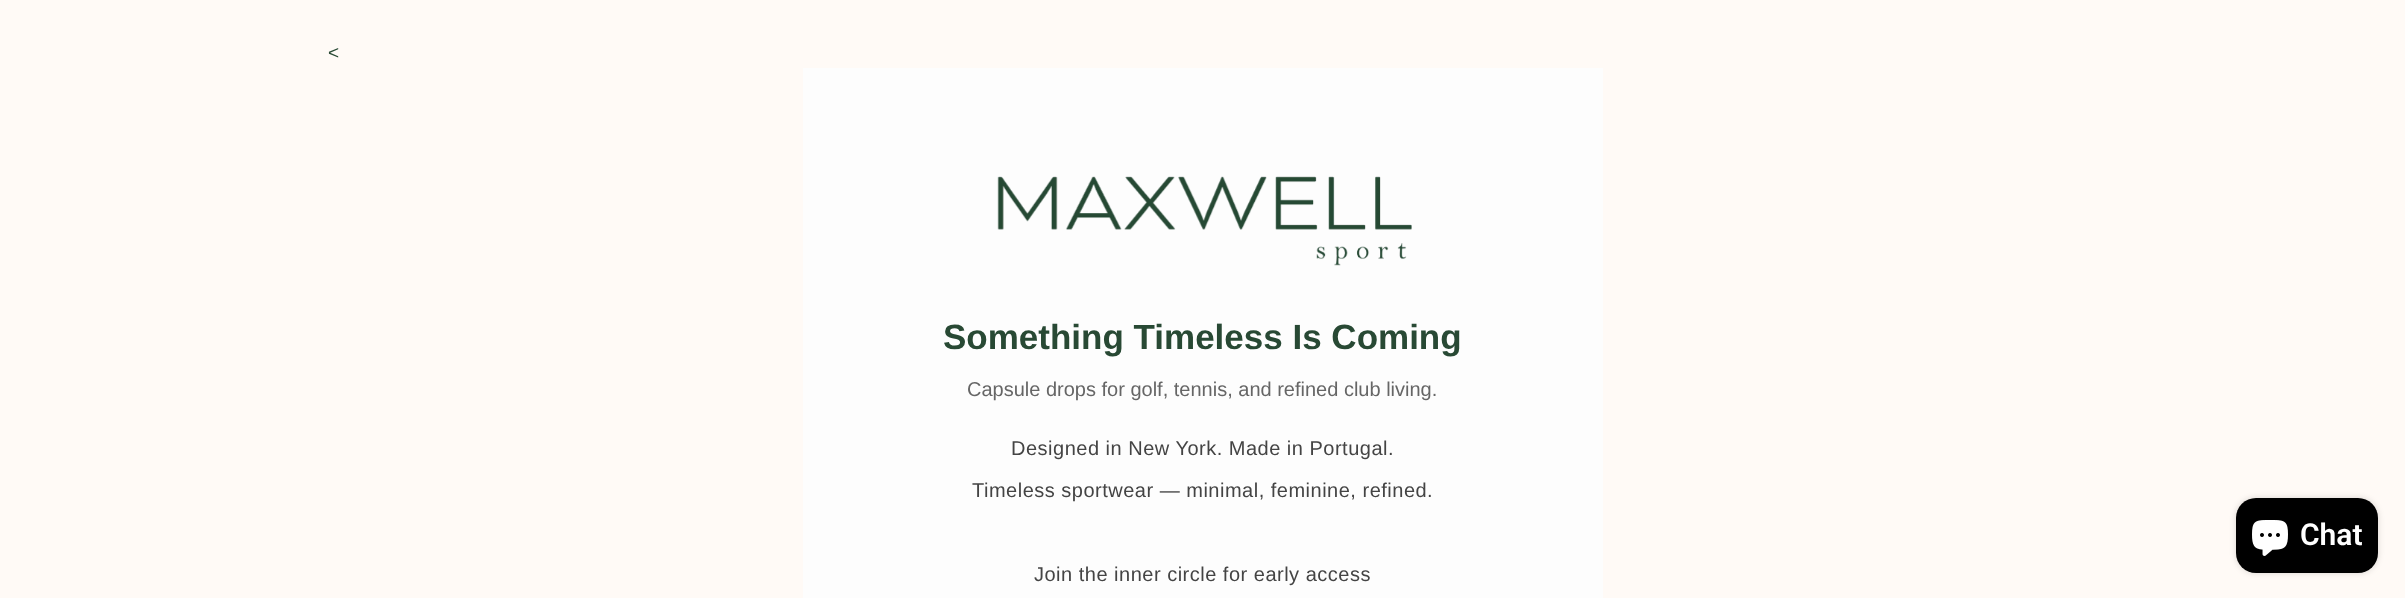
<svg xmlns="http://www.w3.org/2000/svg" width="2405" height="598" viewBox="0 0 2405 598">
  <rect width="100%" height="100%" fill="#fffaf6"/>
  <path d="M803 68h800v530H803z" fill="#fdfdfd"/>
  <image x="997" y="176" width="415" height="90" href="img/1.png"/>
  <rect x="2236" y="498" width="142" height="75" rx="20" fill="#00000026" filter="blur(3px)"/>
  <rect x="2236" y="498" width="142" height="75" rx="20" fill="#000"/>
  <image x="2252" y="520" width="36" height="36" href="img/2.png"/>
  <text x="328" y="59" font-family="Liberation Sans" font-size="19" fill="#284934">&lt;</text>
  <text x="943" y="349" font-family="Liberation Sans" font-size="35" font-weight="bold" fill="#284934">Something Timeless Is Coming</text>
  <text x="967" y="396" font-family="Liberation Sans" font-size="20" fill="#666">Capsule drops for golf, tennis, and refined club living.</text>
  <g font-family="Liberation Sans" font-size="20" letter-spacing="0.5" fill="#444">
    <text x="1011" y="455">Designed in New York. Made in Portugal.</text>
    <text x="972" y="497">Timeless sportwear — minimal, feminine, refined.</text>
    <text x="1034" y="581">Join the inner circle for early access</text>
  </g>
  <text x="2300" y="545" font-family="Roboto" font-size="30" font-weight="600" fill="#fff">Chat</text>
</svg>
